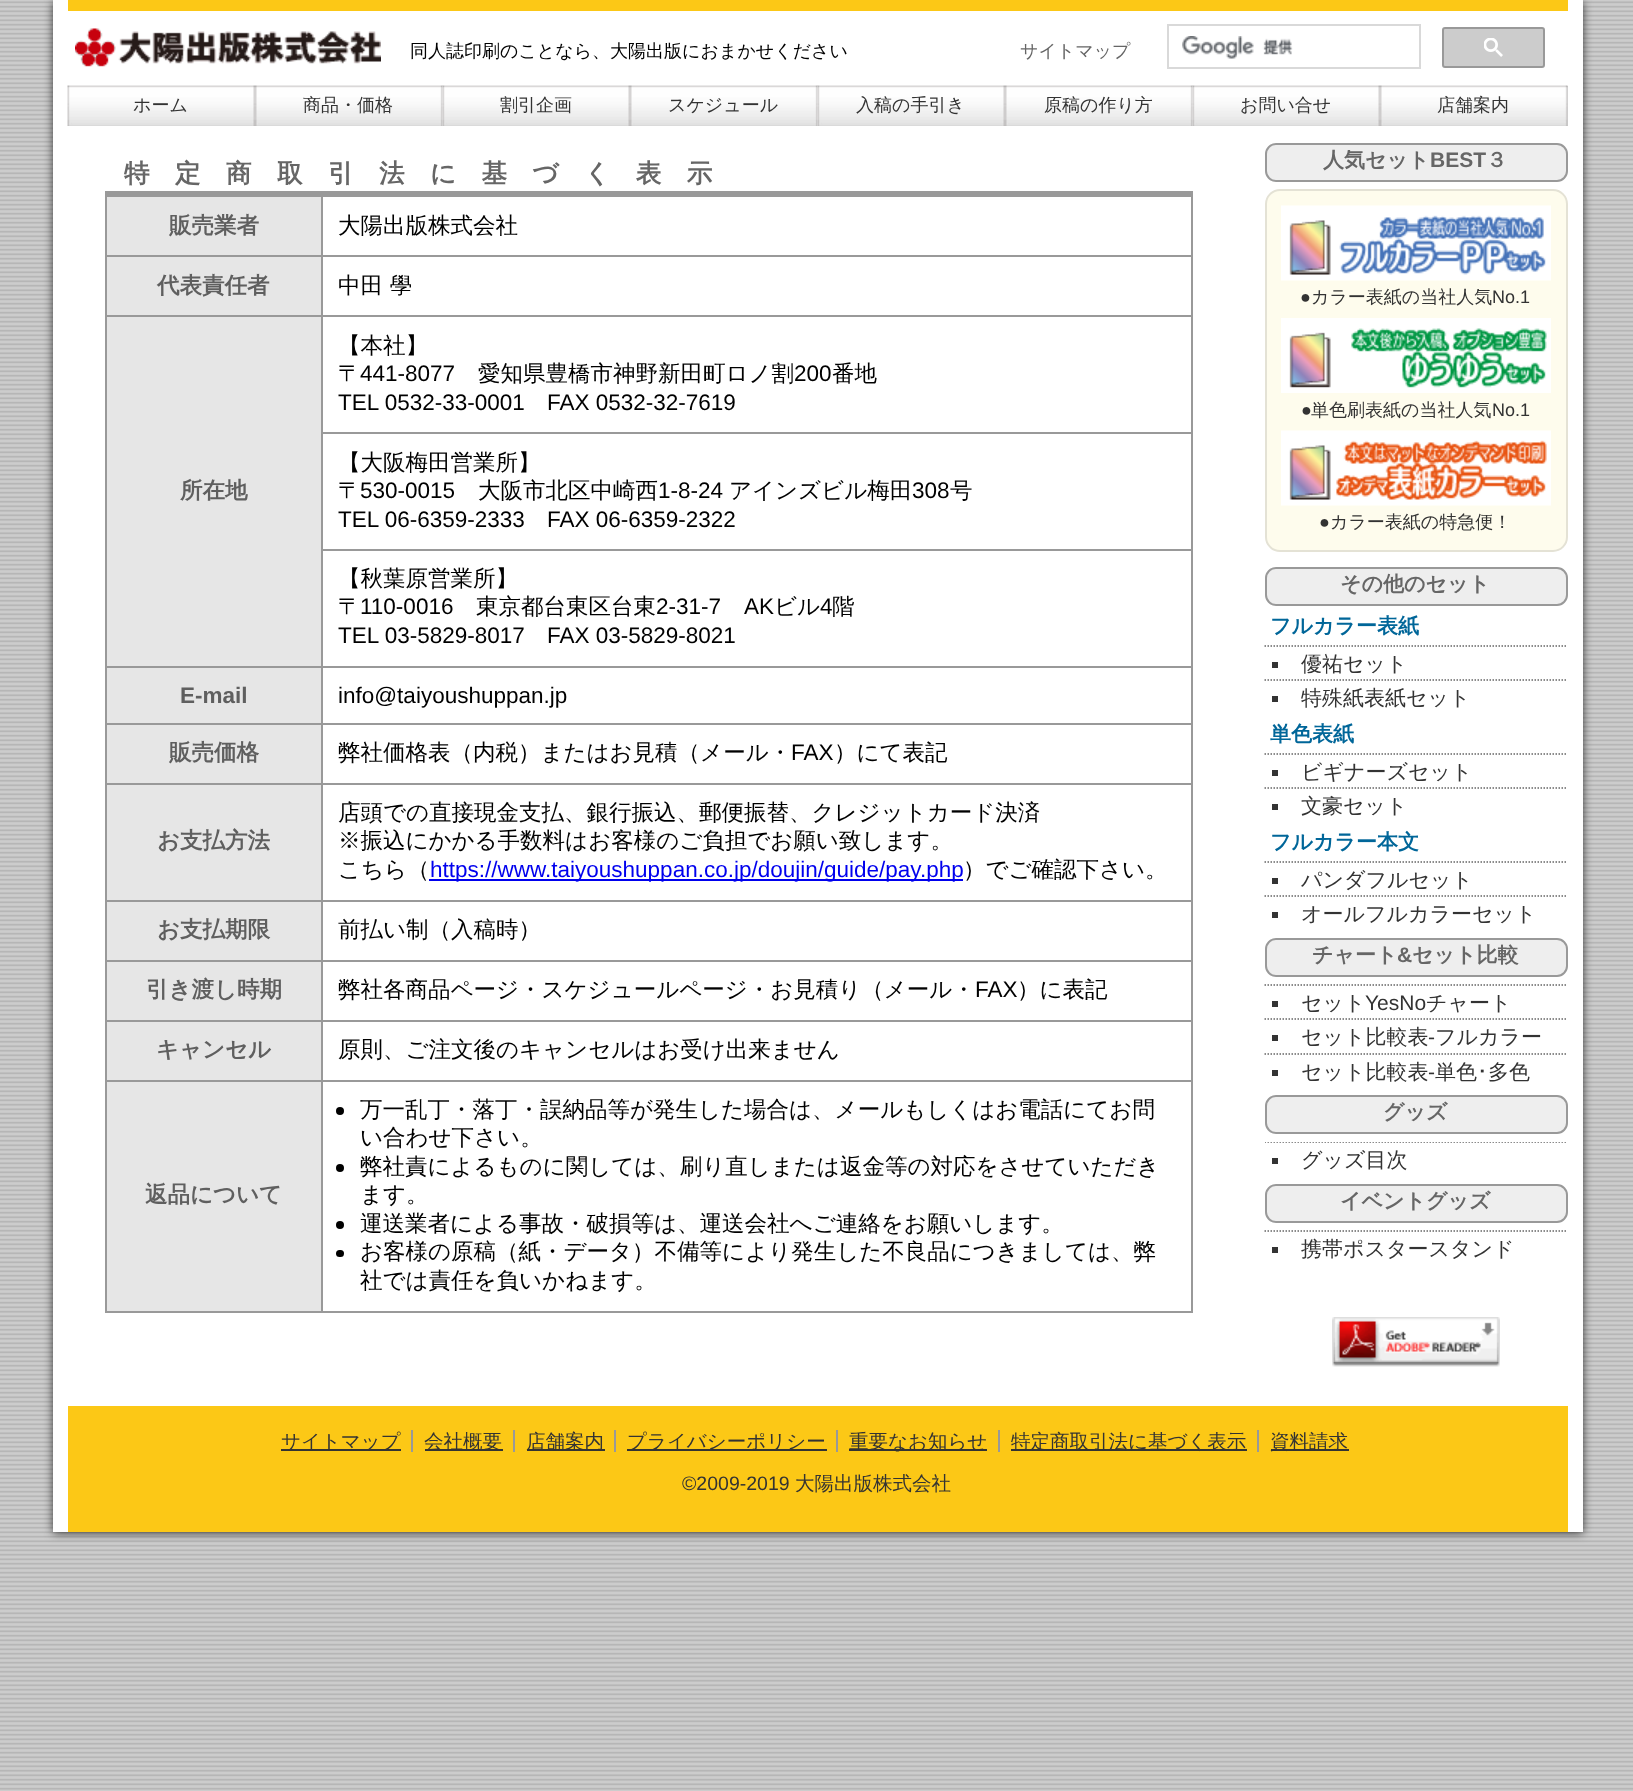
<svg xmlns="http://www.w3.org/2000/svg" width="1633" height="1791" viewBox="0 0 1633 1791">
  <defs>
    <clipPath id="clip1"><path d="M1265 1142h303v34H1265z"/></clipPath>
  </defs>
  <rect width="100%" height="100%" fill="#fff"/>
  <image x="0" y="0" width="1633" height="1791" href="img/1.png"/>
  <path d="M53 2h1530v1531H53z" fill="#333" filter="blur(5px)"/>
  <path d="M53 0h1530v1532H53z" fill="#fff"/>
  <path d="M68 0h1500v11H68z" fill="#fcc816"/>
  <image x="75" y="28" width="306" height="39" href="img/2.png"/>
  <path d="M1168 25h252v43H1168z" fill="none" stroke="#d9d9d9" stroke-width="2"/>
  <image x="1182" y="36" width="111" height="23" href="img/3.png"/>
  <rect x="1443" y="28" width="101" height="39" rx="2" fill="#ccc" stroke="#999" stroke-width="2"/>
  <image x="1484" y="38" width="19" height="19" href="img/4.png"/>
  <image x="67" y="85" width="188" height="41" href="img/5.png"/>
  <image x="255" y="85" width="188" height="41" href="img/6.png"/>
  <image x="442" y="85" width="188" height="41" href="img/7.png"/>
  <image x="630" y="85" width="188" height="41" href="img/6.png"/>
  <image x="817" y="85" width="188" height="41" href="img/7.png"/>
  <image x="1005" y="85" width="188" height="41" href="img/6.png"/>
  <image x="1192" y="85" width="188" height="41" href="img/7.png"/>
  <path d="M1567 86h1v40H1567z" fill="#ccc"/>
  <image x="1380" y="85" width="188" height="41" href="img/6.png"/>
  <path d="M105 191h1088v6H105z" fill="#999"/>
  <path d="M1191 195h2v1118H1191z" fill="#999"/>
  <path d="M105 1311h1088v2H105z" fill="#999"/>
  <path d="M105 195h2v1118H105z" fill="#999"/>
  <path d="M107 197h214v58H107z" fill="#e6e6e6"/>
  <path d="M321 255h872v2H321z" fill="#999"/>
  <path d="M105 315h218v2H105z" fill="#999"/>
  <path d="M321 432h872v2H321z" fill="#999"/>
  <path d="M321 549h872v2H321z" fill="#999"/>
  <path d="M321 666h872v2H321z" fill="#999"/>
  <path d="M321 723h872v2H321z" fill="#999"/>
  <path d="M321 783h872v2H321z" fill="#999"/>
  <path d="M321 900h872v2H321z" fill="#999"/>
  <path d="M321 960h872v2H321z" fill="#999"/>
  <path d="M321 1020h872v2H321z" fill="#999"/>
  <path d="M321 1080h872v2H321z" fill="#999"/>
  <path d="M321 1080h2v233H321z" fill="#999"/>
  <path d="M105 1080h218v2H105z" fill="#999"/>
  <path d="M321 1020h2v62H321z" fill="#999"/>
  <path d="M105 1020h218v2H105z" fill="#999"/>
  <path d="M321 960h2v62H321z" fill="#999"/>
  <path d="M105 960h218v2H105z" fill="#999"/>
  <path d="M321 900h2v62H321z" fill="#999"/>
  <path d="M105 900h218v2H105z" fill="#999"/>
  <path d="M321 783h2v119H321z" fill="#999"/>
  <path d="M105 783h218v2H105z" fill="#999"/>
  <path d="M321 723h2v62H321z" fill="#999"/>
  <path d="M105 723h218v2H105z" fill="#999"/>
  <path d="M321 666h2v59H321z" fill="#999"/>
  <path d="M105 666h218v2H105z" fill="#999"/>
  <path d="M321 315h2v353H321z" fill="#999"/>
  <path d="M321 315h872v2H321z" fill="#999"/>
  <path d="M321 255h2v62H321z" fill="#999"/>
  <path d="M105 255h218v2H105z" fill="#999"/>
  <path d="M321 195h2v62H321z" fill="#999"/>
  <path d="M107 257h214v58H107z" fill="#e6e6e6"/>
  <path d="M107 317h214v349H107z" fill="#e6e6e6"/>
  <path d="M107 668h214v55H107z" fill="#e6e6e6"/>
  <path d="M107 725h214v58H107z" fill="#e6e6e6"/>
  <path d="M107 785h214v115H107z" fill="#e6e6e6"/>
  <path d="M429 879h534v2H429z" fill="#00e"/>
  <path d="M107 902h214v58H107z" fill="#e6e6e6"/>
  <path d="M107 962h214v58H107z" fill="#e6e6e6"/>
  <path d="M107 1022h214v58H107z" fill="#e6e6e6"/>
  <path d="M107 1082h214v229H107z" fill="#e6e6e6"/>
  <circle cx="340" cy="1111" r="4" fill="#000"/>
  <circle cx="340" cy="1168" r="4" fill="#000"/>
  <circle cx="340" cy="1225" r="4" fill="#000"/>
  <rect x="336" y="1250" width="8" height="7" rx="3.5" fill="#000"/>
  <rect x="1266" y="144" width="301" height="37" rx="10" fill="#eee" stroke="#999" stroke-width="2"/>
  <rect x="1266" y="190" width="301" height="361" rx="14" fill="#fefced" stroke="#e4e2d5" stroke-width="2"/>
  <image x="1281" y="205" width="270" height="76" href="img/8.png"/>
  <image x="1281" y="318" width="270" height="75" href="img/9.png"/>
  <image x="1281" y="430" width="270" height="76" href="img/10.png"/>
  <rect x="1266" y="568" width="301" height="37" rx="10" fill="#eee" stroke="#999" stroke-width="2"/>
  <path d="M1264.5 646H1567.5" fill="none" stroke="#666" stroke-width="1.5" stroke-dasharray="1.5 1.5"/>
  <path d="M1272 662h6v6H1272z" fill="#333"/>
  <path d="M1264.5 680H1567.5" fill="none" stroke="#666" stroke-width="1.5" stroke-dasharray="1.5 1.5"/>
  <path d="M1272 696h6v6H1272z" fill="#333"/>
  <path d="M1264.5 754H1567.5" fill="none" stroke="#666" stroke-width="1.5" stroke-dasharray="1.5 1.5"/>
  <path d="M1272 770h6v6H1272z" fill="#333"/>
  <path d="M1264.5 788H1567.5" fill="none" stroke="#666" stroke-width="1.5" stroke-dasharray="1.5 1.5"/>
  <path d="M1272 804h6v6H1272z" fill="#333"/>
  <path d="M1264.5 862H1567.5" fill="none" stroke="#666" stroke-width="1.5" stroke-dasharray="1.5 1.5"/>
  <path d="M1272 878h6v6H1272z" fill="#333"/>
  <path d="M1264.5 896H1567.5" fill="none" stroke="#666" stroke-width="1.5" stroke-dasharray="1.5 1.5"/>
  <path d="M1272 912h6v6H1272z" fill="#333"/>
  <rect x="1266" y="939" width="301" height="37" rx="10" fill="#eee" stroke="#999" stroke-width="2"/>
  <path d="M1264.5 985H1567.5" fill="none" stroke="#666" stroke-width="1.5" stroke-dasharray="1.5 1.5"/>
  <path d="M1272 1001h6v6H1272z" fill="#333"/>
  <path d="M1264.5 1019H1567.5" fill="none" stroke="#666" stroke-width="1.5" stroke-dasharray="1.5 1.5"/>
  <path d="M1272 1035h6v6H1272z" fill="#333"/>
  <path d="M1264.5 1054H1567.5" fill="none" stroke="#666" stroke-width="1.5" stroke-dasharray="1.5 1.5"/>
  <path d="M1272 1070h6v6H1272z" fill="#333"/>
  <rect x="1266" y="1096" width="301" height="37" rx="10" fill="#eee" stroke="#999" stroke-width="2"/>
  <g clip-path="url(#clip1)">
    <path d="M1264.5 1142H1567.5" fill="none" stroke="#666" stroke-width="1.5" stroke-dasharray="1.5 1.5"/>
  </g>
  <path d="M1272 1158h6v6H1272z" fill="#333"/>
  <rect x="1266" y="1185" width="301" height="37" rx="10" fill="#eee" stroke="#999" stroke-width="2"/>
  <path d="M1264.5 1231H1567.5" fill="none" stroke="#666" stroke-width="1.5" stroke-dasharray="1.5 1.5"/>
  <path d="M1272 1247h6v6H1272z" fill="#333"/>
  <image x="1332" y="1317" width="168" height="50" href="img/11.png"/>
  <path d="M68 1406h1500v126H68z" fill="#fcc816"/>
  <path d="M281 1449h120v2H281z" fill="#333"/>
  <path d="M411 1430h2v22H411z" fill="#999"/>
  <path d="M425 1449h78v2H425z" fill="#333"/>
  <path d="M513 1430h2v22H513z" fill="#999"/>
  <path d="M527 1449h78v2H527z" fill="#333"/>
  <path d="M614 1430h2v22H614z" fill="#999"/>
  <path d="M627 1449h200v2H627z" fill="#333"/>
  <path d="M836 1430h2v22H836z" fill="#999"/>
  <path d="M849 1449h138v2H849z" fill="#333"/>
  <path d="M998 1430h2v22H998z" fill="#999"/>
  <path d="M1011 1449h236v2H1011z" fill="#333"/>
  <path d="M1257 1430h2v22H1257z" fill="#999"/>
  <path d="M1271 1449h78v2H1271z" fill="#333"/>
  <text x="410" y="57" font-family="WenQuanYi Zen Hei" font-size="18" font-weight="500" fill="#000">同人誌印刷のことなら、大陽出版におまかせください</text>
  <text x="1020" y="57" font-family="WenQuanYi Zen Hei" font-size="18" font-weight="500" fill="#666">サイトマップ</text>
  <g font-family="WenQuanYi Zen Hei" font-size="18" font-weight="500" fill="#333">
    <text x="133" y="111">ホーム</text>
    <text x="303" y="111">商品・価格</text>
    <text x="500" y="111">割引企画</text>
    <text x="668" y="111">スケジュール</text>
    <text x="856" y="111">入稿の手引き</text>
    <text x="1044" y="111">原稿の作り方</text>
    <text x="1240" y="111">お問い合せ</text>
    <text x="1437" y="111">店舗案内</text>
  </g>
  <text x="124" y="182" font-family="WenQuanYi Zen Hei" font-size="25.5" font-weight="bold" letter-spacing="25.5" fill="#666">特定商取引法に基づく表示</text>
  <text x="169" y="233" font-family="WenQuanYi Zen Hei" font-size="22.5" font-weight="bold" fill="#5f5f5f">販売業者</text>
  <text x="338" y="233" font-family="WenQuanYi Zen Hei" font-size="22.5" font-weight="500" fill="#000">大陽出版株式会社</text>
  <text x="157" y="293" font-family="WenQuanYi Zen Hei" font-size="22.5" font-weight="bold" fill="#5f5f5f">代表責任者</text>
  <g font-family="WenQuanYi Zen Hei" font-size="22.5" font-weight="500" fill="#000">
    <text x="338" y="293">中田 學</text>
    <text x="338" y="353">【本社】</text>
    <text x="338" y="381">〒</text>
  </g>
  <text x="360" y="381" font-family="Liberation Sans" font-size="22.5" fill="#000">441-8077</text>
  <text x="478" y="381" font-family="WenQuanYi Zen Hei" font-size="22.5" font-weight="500" fill="#000">愛知県豊橋市神野新田町ロノ割</text>
  <text x="794" y="381" font-family="Liberation Sans" font-size="22.5" fill="#000">200</text>
  <text x="832" y="381" font-family="WenQuanYi Zen Hei" font-size="22.5" font-weight="500" fill="#000">番地</text>
  <g font-family="Liberation Sans" font-size="22.5" fill="#000">
    <text x="338" y="410">TEL 0532-33-0001</text>
    <text x="547" y="410">FAX 0532-32-7619</text>
  </g>
  <text x="180" y="498" font-family="WenQuanYi Zen Hei" font-size="22.5" font-weight="bold" fill="#5f5f5f">所在地</text>
  <g font-family="WenQuanYi Zen Hei" font-size="22.5" font-weight="500" fill="#000">
    <text x="338" y="470">【大阪梅田営業所】</text>
    <text x="338" y="498">〒</text>
  </g>
  <text x="360" y="498" font-family="Liberation Sans" font-size="22.5" fill="#000">530-0015</text>
  <text x="478" y="498" font-family="WenQuanYi Zen Hei" font-size="22.5" font-weight="500" fill="#000">大阪市北区中崎西</text>
  <text x="658" y="498" font-family="Liberation Sans" font-size="22.5" fill="#000">1-8-24</text>
  <text x="729" y="498" font-family="WenQuanYi Zen Hei" font-size="22.5" font-weight="500" fill="#000">アインズビル梅田</text>
  <text x="912" y="498" font-family="Liberation Sans" font-size="22.5" fill="#000">308</text>
  <text x="950" y="498" font-family="WenQuanYi Zen Hei" font-size="22.5" font-weight="500" fill="#000">号</text>
  <g font-family="Liberation Sans" font-size="22.5" fill="#000">
    <text x="338" y="527">TEL 06-6359-2333</text>
    <text x="547" y="527">FAX 06-6359-2322</text>
  </g>
  <g font-family="WenQuanYi Zen Hei" font-size="22.5" font-weight="500" fill="#000">
    <text x="338" y="586">【秋葉原営業所】</text>
    <text x="338" y="614">〒</text>
  </g>
  <text x="360" y="614" font-family="Liberation Sans" font-size="22.5" fill="#000">110-0016</text>
  <text x="476" y="614" font-family="WenQuanYi Zen Hei" font-size="22.5" font-weight="500" fill="#000">東京都台東区台東</text>
  <g font-family="Liberation Sans" font-size="22.5" fill="#000">
    <text x="656" y="614">2-31-7</text>
    <text x="744" y="614">AK</text>
  </g>
  <text x="774" y="614" font-family="WenQuanYi Zen Hei" font-size="22.5" font-weight="500" fill="#000">ビル</text>
  <text x="820" y="614" font-family="Liberation Sans" font-size="22.5" fill="#000">4</text>
  <text x="832" y="614" font-family="WenQuanYi Zen Hei" font-size="22.5" font-weight="500" fill="#000">階</text>
  <g font-family="Liberation Sans" font-size="22.5" fill="#000">
    <text x="338" y="643">TEL 03-5829-8017</text>
    <text x="547" y="643">FAX 03-5829-8021</text>
  </g>
  <text x="180" y="703" font-family="Liberation Sans" font-size="22.5" font-weight="bold" fill="#5f5f5f">E-mail</text>
  <text x="338" y="703" font-family="Liberation Sans" font-size="22.5" fill="#000">info@taiyoushuppan.jp</text>
  <text x="169" y="760" font-family="WenQuanYi Zen Hei" font-size="22.5" font-weight="bold" fill="#5f5f5f">販売価格</text>
  <text x="338" y="760" font-family="WenQuanYi Zen Hei" font-size="22.5" font-weight="500" fill="#000">弊社価格表（内税）またはお見積（メール・</text>
  <text x="791" y="760" font-family="Liberation Sans" font-size="22.5" fill="#000">FAX</text>
  <text x="834" y="760" font-family="WenQuanYi Zen Hei" font-size="22.5" font-weight="500" fill="#000">）にて表記</text>
  <text x="157" y="848" font-family="WenQuanYi Zen Hei" font-size="22.5" font-weight="bold" fill="#5f5f5f">お支払方法</text>
  <g font-family="WenQuanYi Zen Hei" font-size="22.5" font-weight="500" fill="#000">
    <text x="338" y="820">店頭での直接現金支払、銀行振込、郵便振替、クレジットカード決済</text>
    <text x="338" y="848">※振込にかかる手数料はお客様のご負担でお願い致します。</text>
    <text x="338" y="877">こちら（</text>
  </g>
  <text x="430" y="877" font-family="Liberation Sans" font-size="22.5" fill="#00e">https://www.taiyoushuppan.co.jp/doujin/guide/pay.php</text>
  <text x="963" y="877" font-family="WenQuanYi Zen Hei" font-size="22.5" font-weight="500" fill="#000">）でご確認下さい。</text>
  <text x="157" y="937" font-family="WenQuanYi Zen Hei" font-size="22.5" font-weight="bold" fill="#5f5f5f">お支払期限</text>
  <text x="338" y="937" font-family="WenQuanYi Zen Hei" font-size="22.5" font-weight="500" fill="#000">前払い制（入稿時）</text>
  <text x="146" y="997" font-family="WenQuanYi Zen Hei" font-size="22.5" font-weight="bold" fill="#5f5f5f">引き渡し時期</text>
  <text x="338" y="997" font-family="WenQuanYi Zen Hei" font-size="22.5" font-weight="500" fill="#000">弊社各商品ページ・スケジュールページ・お見積り（メール・</text>
  <text x="975" y="997" font-family="Liberation Sans" font-size="22.5" fill="#000">FAX</text>
  <text x="1017" y="997" font-family="WenQuanYi Zen Hei" font-size="22.5" font-weight="500" fill="#000">）に表記</text>
  <text x="156" y="1057" font-family="WenQuanYi Zen Hei" font-size="22.5" font-weight="bold" fill="#5f5f5f">キャンセル</text>
  <text x="338" y="1057" font-family="WenQuanYi Zen Hei" font-size="22.5" font-weight="500" fill="#000">原則、ご注文後のキャンセルはお受け出来ません</text>
  <text x="145" y="1202" font-family="WenQuanYi Zen Hei" font-size="22.5" font-weight="bold" fill="#5f5f5f">返品について</text>
  <g font-family="WenQuanYi Zen Hei" font-size="22.5" font-weight="500" fill="#000">
    <text x="360" y="1117">万一乱丁・落丁・誤納品等が発生した場合は、メールもしくはお電話にてお問</text>
    <text x="360" y="1145">い合わせ下さい。</text>
    <text x="360" y="1174">弊社責によるものに関しては、刷り直しまたは返金等の対応をさせていただき</text>
    <text x="360" y="1202">ます。</text>
    <text x="360" y="1231">運送業者による事故・破損等は、運送会社へご連絡をお願いします。</text>
    <text x="360" y="1259">お客様の原稿（紙・データ）不備等により発生した不良品につきましては、弊</text>
    <text x="360" y="1288">社では責任を負いかねます。</text>
  </g>
  <text x="1323" y="167" font-family="WenQuanYi Zen Hei" font-size="21" font-weight="bold" fill="#666">人気セット</text>
  <text x="1430" y="167" font-family="Liberation Sans" font-size="21" font-weight="bold" fill="#666">BEST</text>
  <text x="1486" y="167" font-family="WenQuanYi Zen Hei" font-size="21" font-weight="bold" fill="#666">３</text>
  <text x="1300" y="303" font-family="Liberation Sans" font-size="18" fill="#333">●</text>
  <text x="1311" y="303" font-family="WenQuanYi Zen Hei" font-size="18" font-weight="500" fill="#333">カラー表紙の当社人気</text>
  <g font-family="Liberation Sans" font-size="18" fill="#333">
    <text x="1492" y="303">No.1</text>
    <text x="1301" y="416">●</text>
  </g>
  <text x="1311" y="416" font-family="WenQuanYi Zen Hei" font-size="18" font-weight="500" fill="#333">単色刷表紙の当社人気</text>
  <g font-family="Liberation Sans" font-size="18" fill="#333">
    <text x="1492" y="416">No.1</text>
    <text x="1319" y="528">●</text>
  </g>
  <text x="1330" y="528" font-family="WenQuanYi Zen Hei" font-size="18" font-weight="500" fill="#333">カラー表紙の特急便！</text>
  <text x="1340" y="591" font-family="WenQuanYi Zen Hei" font-size="21" font-weight="bold" fill="#666">その他のセット</text>
  <text x="1270" y="633" font-family="WenQuanYi Zen Hei" font-size="21" font-weight="bold" fill="#069">フルカラー表紙</text>
  <g font-family="WenQuanYi Zen Hei" font-size="21" font-weight="500" fill="#333">
    <text x="1301" y="671">優祐セット</text>
    <text x="1301" y="705">特殊紙表紙セット</text>
  </g>
  <text x="1270" y="741" font-family="WenQuanYi Zen Hei" font-size="21" font-weight="bold" fill="#069">単色表紙</text>
  <g font-family="WenQuanYi Zen Hei" font-size="21" font-weight="500" fill="#333">
    <text x="1301" y="779">ビギナーズセット</text>
    <text x="1301" y="813">文豪セット</text>
  </g>
  <text x="1270" y="849" font-family="WenQuanYi Zen Hei" font-size="21" font-weight="bold" fill="#069">フルカラー本文</text>
  <g font-family="WenQuanYi Zen Hei" font-size="21" font-weight="500" fill="#333">
    <text x="1301" y="887">パンダフルセット</text>
    <text x="1301" y="921">オールフルカラーセット</text>
  </g>
  <text x="1312" y="962" font-family="WenQuanYi Zen Hei" font-size="21" font-weight="bold" fill="#666">チャート</text>
  <text x="1397" y="962" font-family="Liberation Sans" font-size="21" font-weight="bold" fill="#666">&amp;</text>
  <text x="1412" y="962" font-family="WenQuanYi Zen Hei" font-size="21" font-weight="bold" fill="#666">セット比較</text>
  <text x="1301" y="1010" font-family="WenQuanYi Zen Hei" font-size="21" font-weight="500" fill="#333">セット</text>
  <text x="1365" y="1010" font-family="Liberation Sans" font-size="21" fill="#333">YesNo</text>
  <g font-family="WenQuanYi Zen Hei" font-size="21" font-weight="500" fill="#333">
    <text x="1426" y="1010">チャート</text>
    <text x="1301" y="1044">セット比較表</text>
  </g>
  <text x="1428" y="1044" font-family="Liberation Sans" font-size="21" fill="#333">-</text>
  <g font-family="WenQuanYi Zen Hei" font-size="21" font-weight="500" fill="#333">
    <text x="1435" y="1044">フルカラー</text>
    <text x="1301" y="1079">セット比較表</text>
  </g>
  <text x="1428" y="1079" font-family="Liberation Sans" font-size="21" fill="#333">-</text>
  <text x="1435" y="1079" font-family="WenQuanYi Zen Hei" font-size="21" font-weight="500" fill="#333">単色</text>
  <text x="1477" y="1079" font-family="IPAGothic" font-size="21" fill="#333">･</text>
  <text x="1488" y="1079" font-family="WenQuanYi Zen Hei" font-size="21" font-weight="500" fill="#333">多色</text>
  <text x="1383" y="1119" font-family="WenQuanYi Zen Hei" font-size="21" font-weight="bold" fill="#666">グッズ</text>
  <text x="1301" y="1167" font-family="WenQuanYi Zen Hei" font-size="21" font-weight="500" fill="#333">グッズ目次</text>
  <text x="1340" y="1208" font-family="WenQuanYi Zen Hei" font-size="21" font-weight="bold" fill="#666">イベントグッズ</text>
  <text x="1301" y="1256" font-family="WenQuanYi Zen Hei" font-size="21" font-weight="500" fill="#333">携帯ポスタースタンド</text>
  <g font-family="WenQuanYi Zen Hei" font-size="19.5" font-weight="500" fill="#333">
    <text x="281" y="1448">サイトマップ</text>
    <text x="424" y="1448">会社概要</text>
    <text x="526" y="1448">店舗案内</text>
    <text x="627" y="1448">プライバシーポリシー</text>
    <text x="849" y="1448">重要なお知らせ</text>
    <text x="1011" y="1448">特定商取引法に基づく表示</text>
    <text x="1270" y="1448">資料請求</text>
  </g>
  <text x="682" y="1490" font-family="Liberation Sans" font-size="19.5" fill="#333">©2009-2019</text>
  <text x="795" y="1490" font-family="WenQuanYi Zen Hei" font-size="19.5" font-weight="500" fill="#333">大陽出版株式会社</text>
</svg>
